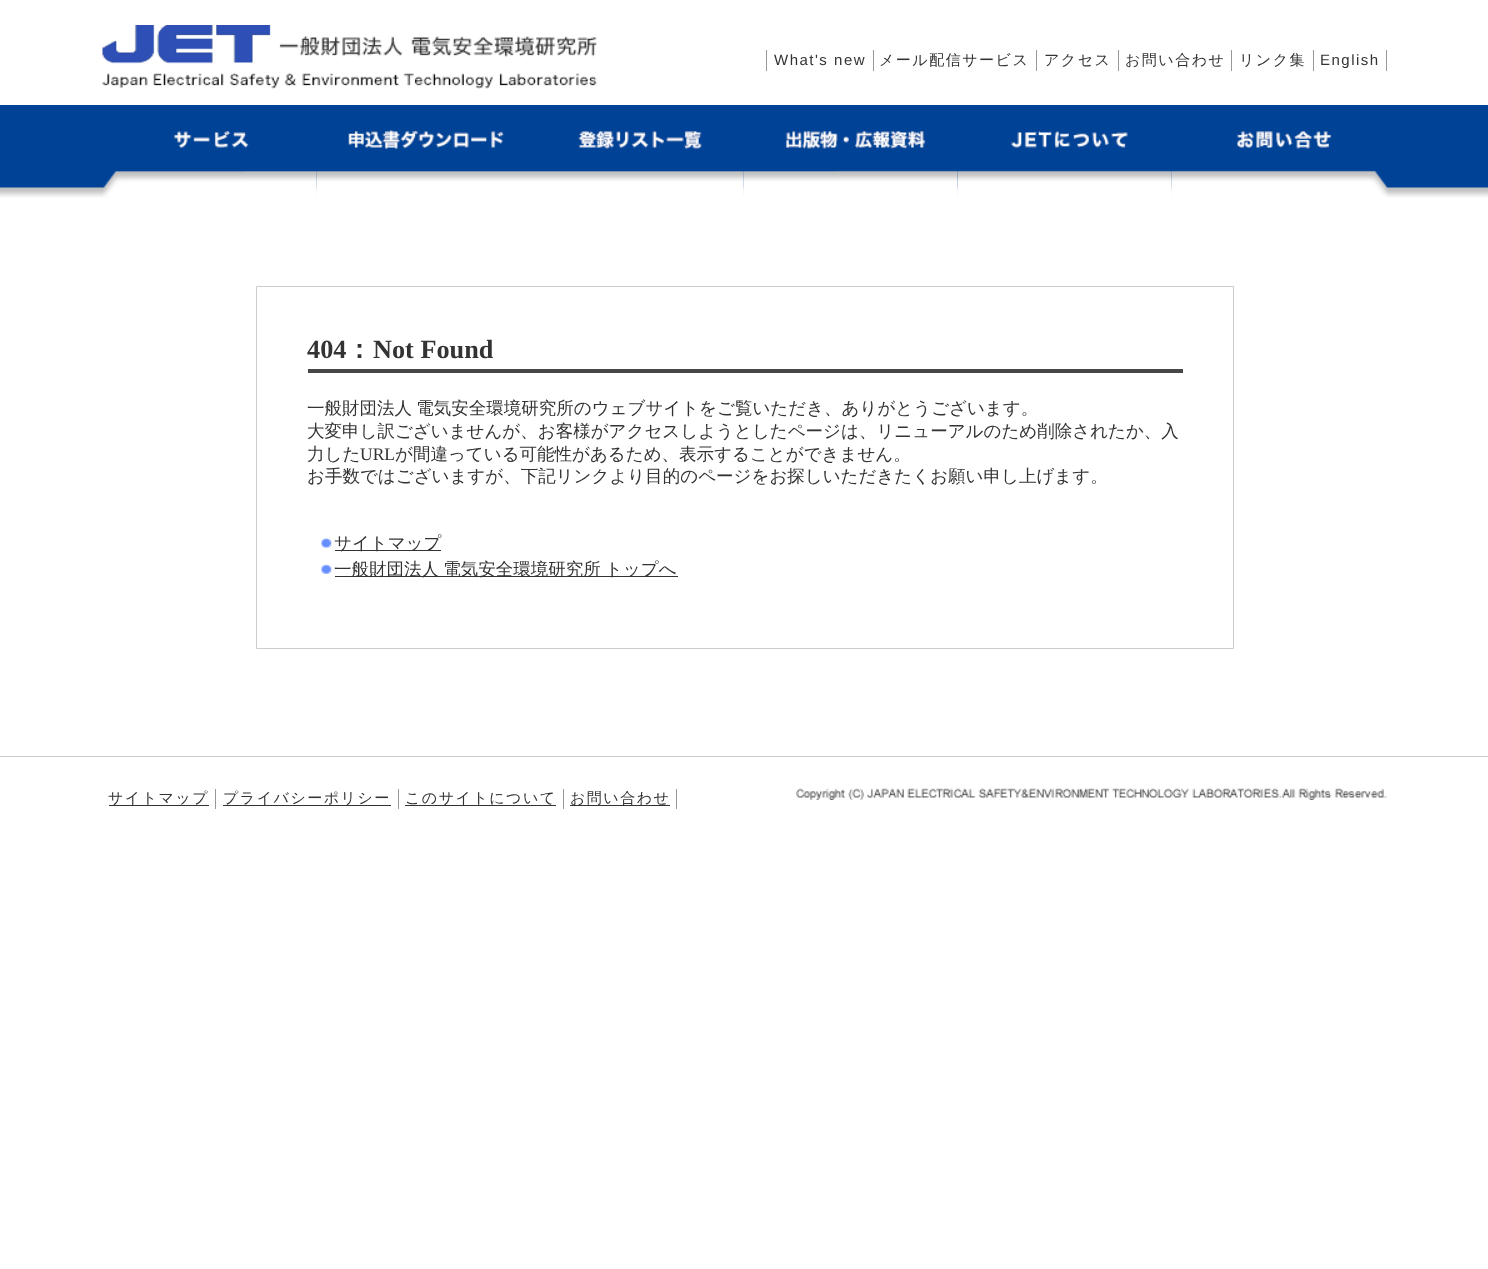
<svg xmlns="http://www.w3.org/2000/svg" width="1488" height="1269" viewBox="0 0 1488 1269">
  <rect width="100%" height="100%" fill="#fff"/>
  <image x="0" y="105" width="1488" height="93" href="img/1.png"/>
  <image x="102" y="25" width="495" height="64" href="img/2.png"/>
  <path d="M766 50h1v21H766z" fill="#999"/>
  <path d="M873 50h1v21H873z" fill="#999"/>
  <path d="M1036 50h1v21H1036z" fill="#999"/>
  <path d="M1118 50h1v21H1118z" fill="#999"/>
  <path d="M1231 50h1v21H1231z" fill="#999"/>
  <path d="M1313 50h1v21H1313z" fill="#999"/>
  <path d="M1386 50h1v21H1386z" fill="#999"/>
  <image x="103" y="131" width="214" height="67" href="img/3.png"/>
  <image x="316" y="129" width="214" height="69" href="img/4.png"/>
  <image x="530" y="131" width="214" height="67" href="img/5.png"/>
  <image x="743" y="131" width="215" height="67" href="img/6.png"/>
  <image x="957" y="131" width="215" height="67" href="img/7.png"/>
  <image x="1171" y="131" width="217" height="67" href="img/8.png"/>
  <path d="M256.5 286.5h977v362H256.5z" fill="none" stroke="#ccc"/>
  <path d="M308 369h875v4H308z" fill="#474747"/>
  <image x="321" y="538" width="11" height="10" href="img/9.png"/>
  <path d="M335 550h106v1H335z" fill="#333"/>
  <image x="321" y="564" width="11" height="10" href="img/10.png"/>
  <path d="M335 576h343v1H335z" fill="#333"/>
  <path d="M0 756h1488v1H0z" fill="#ccc"/>
  <path d="M215 789h1v20H215z" fill="#999"/>
  <path d="M109 805h100v1H109z" fill="#333"/>
  <path d="M398 789h1v20H398z" fill="#999"/>
  <path d="M223 805h168v1H223z" fill="#333"/>
  <path d="M563 789h1v20H563z" fill="#999"/>
  <path d="M405 805h151v1H405z" fill="#333"/>
  <path d="M676 789h1v20H676z" fill="#999"/>
  <path d="M570 805h100v1H570z" fill="#333"/>
  <image x="796" y="788" width="591" height="12" href="img/11.png"/>
  <text x="774" y="65" font-family="Liberation Sans" font-size="15" letter-spacing="1.5" fill="#333">What's new</text>
  <g font-family="WenQuanYi Zen Hei" font-size="15" font-weight="500" letter-spacing="1.5" fill="#333">
    <text x="879" y="65">メール配信サービス</text>
    <text x="1044" y="65">アクセス</text>
    <text x="1125" y="65">お問い合わせ</text>
    <text x="1239" y="65">リンク集</text>
  </g>
  <text x="1320" y="65" font-family="Liberation Sans" font-size="15" letter-spacing="1.5" fill="#333">English</text>
  <text x="307" y="358" font-family="Liberation Serif" font-size="26.25" font-weight="bold" fill="#333">404</text>
  <text x="346" y="358" font-family="WenQuanYi Zen Hei" font-size="26.25" font-weight="bold" fill="#333">：</text>
  <text x="373" y="358" font-family="Liberation Serif" font-size="26.25" font-weight="bold" fill="#333">Not Found</text>
  <g font-family="WenQuanYi Zen Hei" font-size="17.5" font-weight="500" fill="#333">
    <text x="307" y="414" word-spacing="-1">一般財団法人 電気安全環境研究所のウェブサイトをご覧いただき、ありがとうございます。</text>
    <text x="307" y="437">大変申し訳ございませんが、お客様がアクセスしようとしたページは、リニューアルのため削除されたか、入</text>
    <text x="307" y="460">力した</text>
  </g>
  <text x="360" y="460" font-family="Liberation Serif" font-size="17.5" fill="#333">URL</text>
  <g font-family="WenQuanYi Zen Hei" font-size="17.5" font-weight="500" fill="#333">
    <text x="395" y="460">が間違っている可能性があるため、表示することができません。</text>
    <text x="307" y="482">お手数ではございますが、下記リンクより目的のページをお探しいただきたくお願い申し上げます。</text>
    <text x="334" y="549">サイトマップ</text>
    <text x="334" y="575" word-spacing="-1">一般財団法人 電気安全環境研究所 トップへ</text>
  </g>
  <g font-family="WenQuanYi Zen Hei" font-size="15" font-weight="500" letter-spacing="1.5" fill="#333">
    <text x="108" y="803">サイトマップ</text>
    <text x="223" y="803">プライバシーポリシー</text>
    <text x="405" y="803">このサイトについて</text>
    <text x="570" y="803">お問い合わせ</text>
  </g>
</svg>
